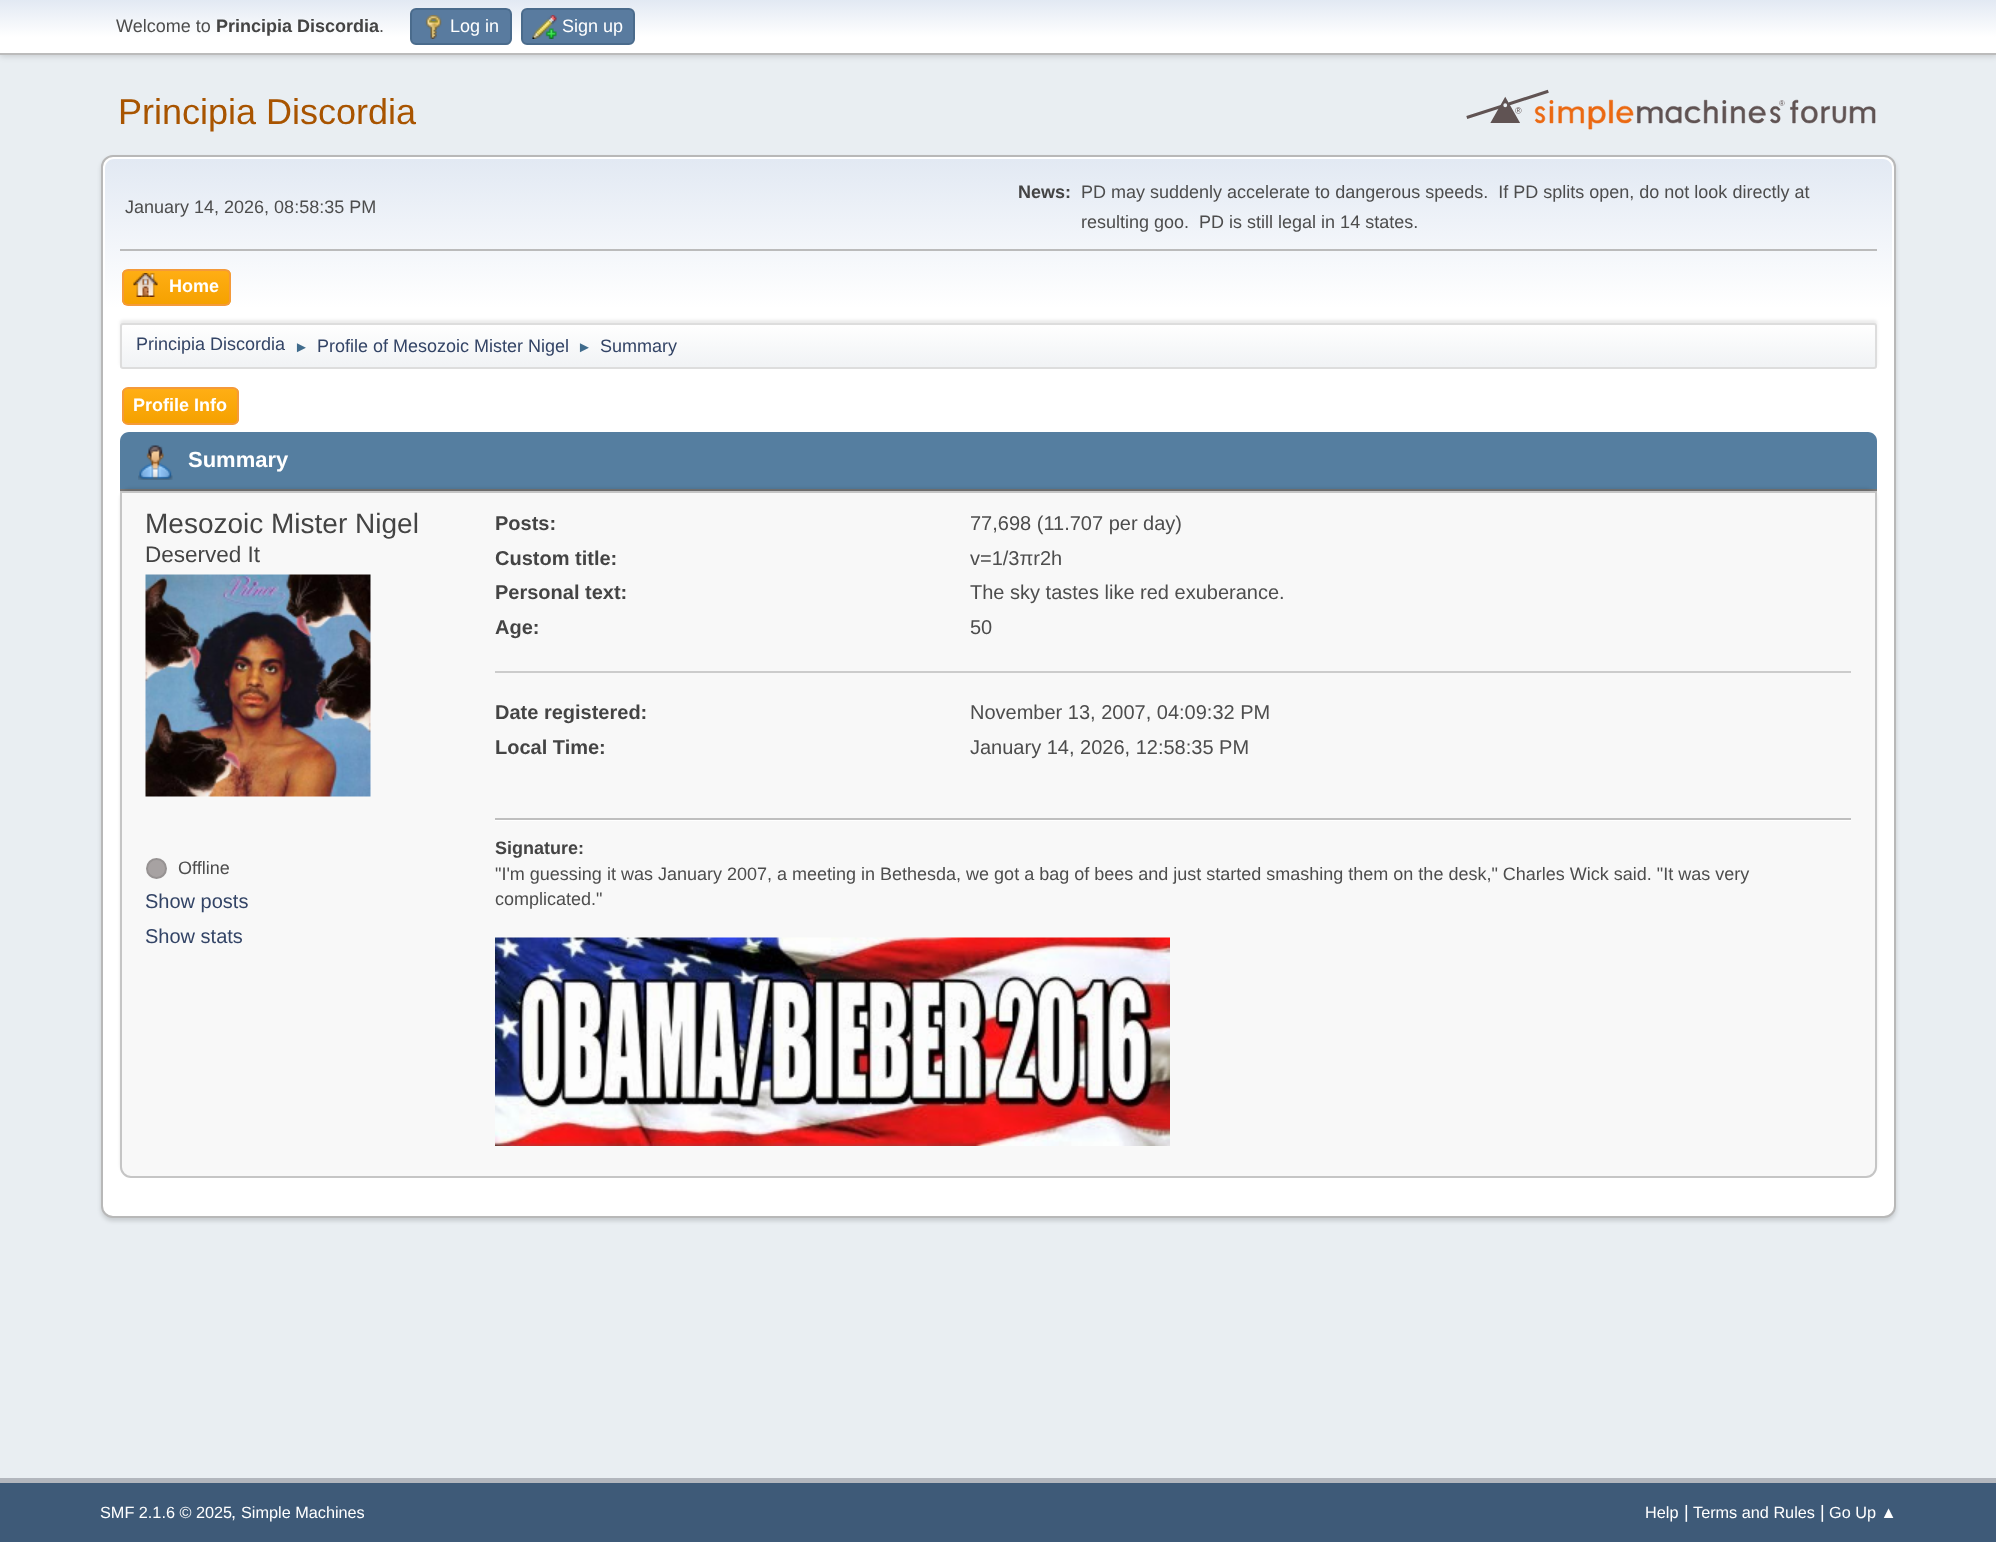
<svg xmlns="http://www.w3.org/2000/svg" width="1996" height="1542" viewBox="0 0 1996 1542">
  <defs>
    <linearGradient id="g1" gradientUnits="userSpaceOnUse" x1="998" y1="0" x2="998" y2="53"><stop offset="0" stop-color="#e2e9f3"/><stop offset="0.7" stop-color="#fff"/></linearGradient>
    <linearGradient id="g2" gradientUnits="userSpaceOnUse" x1="998" y1="159" x2="998" y2="372"><stop offset="0" stop-color="#e2e9f3"/><stop offset="0.7" stop-color="#fff"/></linearGradient>
    <clipPath id="clip1"><rect x="122" y="269" width="109" height="37" rx="6"/></clipPath>
    <linearGradient id="g3" gradientUnits="userSpaceOnUse" x1="176" y1="270" x2="176" y2="305"><stop offset="0" stop-color="#ffae14"/><stop offset="1" stop-color="#f5a100"/></linearGradient>
    <clipPath id="clip2"><rect x="120" y="323" width="1757" height="46" rx="3"/></clipPath>
    <linearGradient id="g4" gradientUnits="userSpaceOnUse" x1="998" y1="324" x2="998" y2="368"><stop offset="0" stop-color="#fff"/><stop offset="0.95" stop-color="#f1f3f5"/></linearGradient>
    <clipPath id="clip3"><rect x="122" y="387" width="117" height="38" rx="6"/></clipPath>
    <linearGradient id="g5" gradientUnits="userSpaceOnUse" x1="180" y1="389" x2="180" y2="423"><stop offset="0" stop-color="#ffae14"/><stop offset="1" stop-color="#f5a100"/></linearGradient>
  </defs>
  <rect width="100%" height="100%" fill="#e9eef2"/>
  <path d="M0 2h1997v54H0z" fill="#00000029" filter="blur(3px)"/>
  <path d="M0 0h1996v53H0z" fill="url(#g1)"/>
  <path d="M0 53h1996v2H0z" fill="#bbb"/>
  <rect x="411" y="9" width="100" height="35" rx="5" fill="#597b9f" stroke="#4a6b8c" stroke-width="2"/>
  <image x="425" y="15" width="17" height="24" href="img/1.png"/>
  <rect x="522" y="9" width="112" height="35" rx="5" fill="#597b9f" stroke="#4a6b8c" stroke-width="2"/>
  <image x="532" y="15" width="25" height="24" href="img/2.png"/>
  <image x="1466" y="89" width="410" height="41" href="img/3.png"/>
  <rect x="101" y="158" width="1795" height="1063" rx="12" fill="#00000024" filter="blur(2px)"/>
  <rect x="102" y="156" width="1793" height="1061" rx="11" fill="#fff" stroke="#b8b8b8" stroke-width="2"/>
  <path d="M114 159H1883C1888 159 1892 163 1892 168V372H105V168C105 163 109 159 114 159Z" fill="url(#g2)"/>
  <path d="M120 249h1757v2H120z" fill="#bbb"/>
  <g clip-path="url(#clip1)">
    <path d="M122 270h109v35H122z" fill="url(#g3)"/>
  </g>
  <rect x="123" y="270" width="107" height="35" rx="5" fill="none" stroke="#f49a3a" stroke-width="2"/>
  <image x="133" y="273" width="25" height="24" href="img/4.png"/>
  <rect x="120" y="320" width="1757" height="46" rx="3" fill="#00000014" filter="blur(1.5px)"/>
  <g clip-path="url(#clip2)">
    <path d="M120 324h1757v44H120z" fill="url(#g4)"/>
  </g>
  <rect x="121" y="324" width="1755" height="44" rx="2" fill="none" stroke="#ddd" stroke-width="2"/>
  <g clip-path="url(#clip3)">
    <path d="M122 389h117v34H122z" fill="url(#g5)"/>
  </g>
  <rect x="123" y="388" width="115" height="36" rx="5" fill="none" stroke="#f49a3a" stroke-width="2"/>
  <path d="M129 432H1868C1873 432 1877 436 1877 441V491H120V441C120 436 124 432 129 432Z" fill="#557ea0"/>
  <path d="M120 489h1757v2H120z" fill="#777"/>
  <image x="138" y="445" width="35" height="35" href="img/5.png"/>
  <rect x="120" y="488" width="1757" height="687" rx="11" fill="#0000001a" filter="blur(1.5px)"/>
  <path d="M121 492H1876V1167C1876 1172.5 1871.5 1177 1866 1177H131C125.5 1177 121 1172.5 121 1167Z" fill="#f8f8f8" stroke="#c5c5c5" stroke-width="2"/>
  <image x="145" y="574" width="226" height="223" href="img/6.png"/>
  <circle cx="156.5" cy="868.5" r="9.5" fill="#a7a2a2" stroke="#969292" stroke-width="2"/>
  <path d="M495 671h1356v2H495z" fill="#ccc"/>
  <path d="M495 820h1356v1H495z" fill="#fff"/>
  <path d="M495 818h1356v2H495z" fill="#bfbfbf"/>
  <image x="495" y="937" width="675" height="209" href="img/7.png"/>
  <path d="M0 1483h1996v59H0z" fill="#3e5a78"/>
  <path d="M0 1478h1996v5H0z" fill="#b2b6bd"/>
  <text x="116" y="32" font-family="Liberation Sans" font-size="18" fill="#4d4d4d">Welcome to</text>
  <text x="216" y="32" font-family="Liberation Sans" font-size="18" font-weight="bold" fill="#444">Principia Discordia</text>
  <text x="379" y="32" font-family="Liberation Sans" font-size="18" fill="#4d4d4d">.</text>
  <g font-family="Liberation Sans" font-size="18" fill="#fff">
    <text x="450" y="32">Log in</text>
    <text x="562" y="32">Sign up</text>
  </g>
  <text x="118" y="124" font-family="Liberation Sans" font-size="36" fill="#a85400">Principia Discordia</text>
  <text x="125" y="213" font-family="Liberation Sans" font-size="18" fill="#4d4d4d">January 14, 2026, 08:58:35 PM</text>
  <text x="1018" y="198" font-family="Liberation Sans" font-size="18" font-weight="bold" fill="#444">News:</text>
  <g font-family="Liberation Sans" font-size="18" fill="#4d4d4d">
    <text x="1081" y="198" xml:space="preserve">PD may suddenly accelerate to dangerous speeds.  If PD splits open, do not look directly at</text>
    <text x="1081" y="228" xml:space="preserve">resulting goo.  PD is still legal in 14 states.</text>
  </g>
  <text x="169" y="292" font-family="Liberation Sans" font-size="18" font-weight="bold" fill="#fff">Home</text>
  <text x="136" y="350" font-family="Liberation Sans" font-size="18" fill="#346">Principia Discordia</text>
  <text x="294" y="352" font-family="Liberation Sans" font-size="15" fill="#3f6b8c">►</text>
  <text x="317" y="352" font-family="Liberation Sans" font-size="18" fill="#346">Profile of Mesozoic Mister Nigel</text>
  <text x="577" y="352" font-family="Liberation Sans" font-size="15" fill="#3f6b8c">►</text>
  <text x="600" y="352" font-family="Liberation Sans" font-size="18" fill="#346">Summary</text>
  <text x="133" y="411" font-family="Liberation Sans" font-size="18" font-weight="bold" fill="#fff">Profile Info</text>
  <text x="188" y="467" font-family="Liberation Sans" font-size="22" font-weight="bold" fill="#fff">Summary</text>
  <text x="145" y="533" font-family="Liberation Sans" font-size="28" fill="#444">Mesozoic Mister Nigel</text>
  <text x="145" y="562" font-family="Liberation Sans" font-size="22.5" fill="#444">Deserved It</text>
  <text x="178" y="874" font-family="Liberation Sans" font-size="18" fill="#4d4d4d">Offline</text>
  <g font-family="Liberation Sans" font-size="20" fill="#346">
    <text x="145" y="908">Show posts</text>
    <text x="145" y="943">Show stats</text>
  </g>
  <text x="495" y="530" font-family="Liberation Sans" font-size="20" font-weight="bold" fill="#444">Posts:</text>
  <text x="970" y="530" font-family="Liberation Sans" font-size="20" fill="#4d4d4d">77,698 (11.707 per day)</text>
  <text x="495" y="565" font-family="Liberation Sans" font-size="20" font-weight="bold" fill="#444">Custom title:</text>
  <text x="970" y="565" font-family="Liberation Sans" font-size="20" fill="#4d4d4d">v=1/3πr2h</text>
  <text x="495" y="599" font-family="Liberation Sans" font-size="20" font-weight="bold" fill="#444">Personal text:</text>
  <text x="970" y="599" font-family="Liberation Sans" font-size="20" fill="#4d4d4d">The sky tastes like red exuberance.</text>
  <text x="495" y="634" font-family="Liberation Sans" font-size="20" font-weight="bold" fill="#444">Age:</text>
  <text x="970" y="634" font-family="Liberation Sans" font-size="20" fill="#4d4d4d">50</text>
  <text x="495" y="719" font-family="Liberation Sans" font-size="20" font-weight="bold" fill="#444">Date registered:</text>
  <text x="970" y="719" font-family="Liberation Sans" font-size="20" fill="#4d4d4d">November 13, 2007, 04:09:32 PM</text>
  <text x="495" y="754" font-family="Liberation Sans" font-size="20" font-weight="bold" fill="#444">Local Time:</text>
  <text x="970" y="754" font-family="Liberation Sans" font-size="20" fill="#4d4d4d">January 14, 2026, 12:58:35 PM</text>
  <text x="495" y="854" font-family="Liberation Sans" font-size="18" font-weight="bold" fill="#444">Signature:</text>
  <g font-family="Liberation Sans" font-size="18" fill="#4d4d4d">
    <text x="495" y="880">"I'm guessing it was January 2007, a meeting in Bethesda, we got a bag of bees and just started smashing them on the desk," Charles Wick said. "It was very</text>
    <text x="495" y="905">complicated."</text>
  </g>
  <text x="100" y="1518" font-family="Liberation Sans" font-size="16.25" fill="#fff">SMF 2.1.6 © 2025</text>
  <text x="231" y="1518" font-family="Liberation Sans" font-size="18" fill="#fff">,</text>
  <g font-family="Liberation Sans" font-size="16.25" fill="#fff">
    <text x="241" y="1518">Simple Machines</text>
    <text x="1645" y="1518">Help</text>
  </g>
  <text x="1684" y="1518" font-family="Liberation Sans" font-size="18" fill="#fff">|</text>
  <text x="1693" y="1518" font-family="Liberation Sans" font-size="16.25" fill="#fff">Terms and Rules</text>
  <text x="1820" y="1518" font-family="Liberation Sans" font-size="18" fill="#fff">|</text>
  <text x="1829" y="1518" font-family="Liberation Sans" font-size="16.25" fill="#fff">Go Up ▲</text>
</svg>
